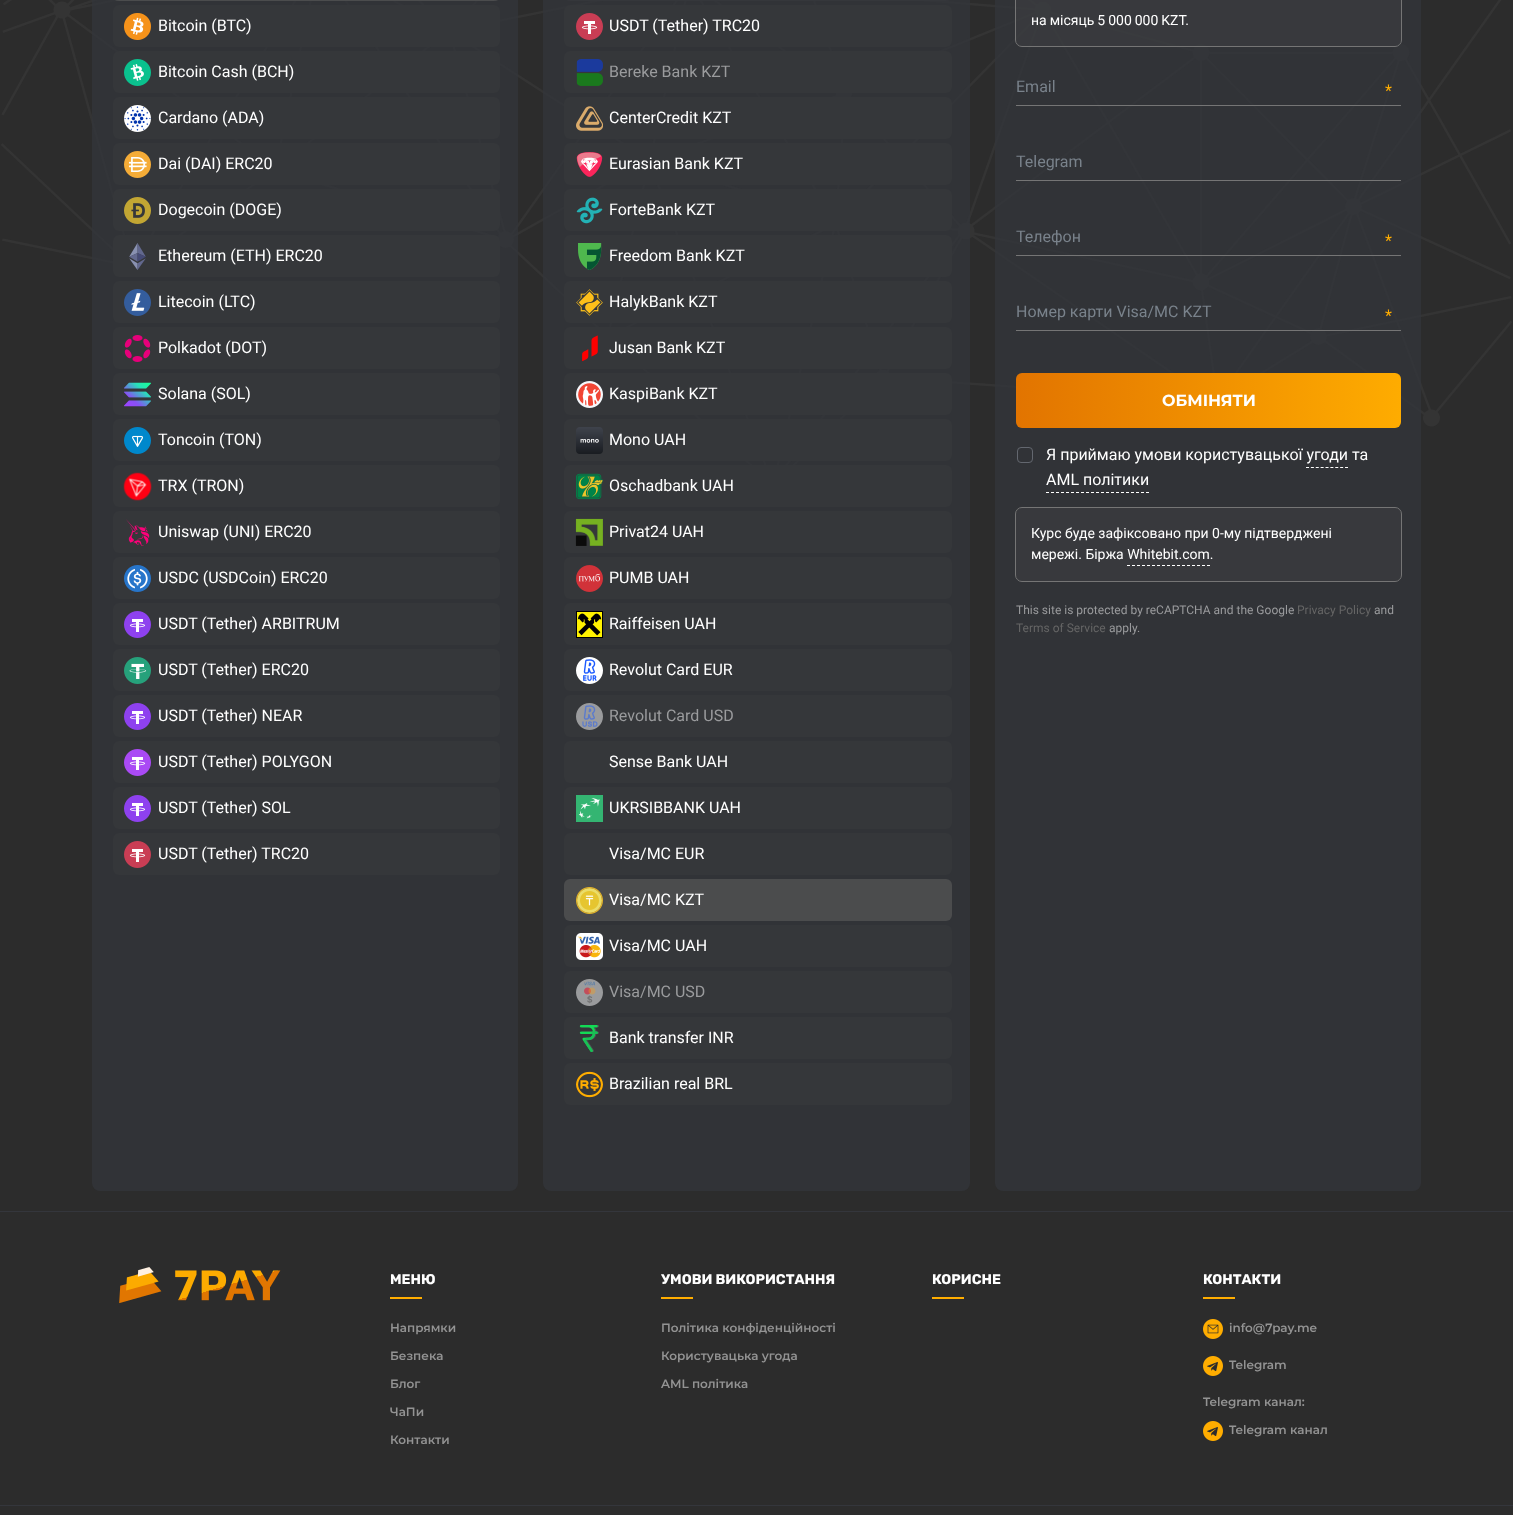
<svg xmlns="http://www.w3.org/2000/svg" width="1513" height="1515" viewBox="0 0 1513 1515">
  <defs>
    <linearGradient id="g1" gradientUnits="userSpaceOnUse" x1="1016" y1="401" x2="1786" y2="401"><stop offset="0" stop-color="#e27400"/><stop offset="0.51" stop-color="#ffad00"/><stop offset="1" stop-color="#e27400"/></linearGradient>
  </defs>
  <rect width="100%" height="100%" fill="#2c2c2c"/>
  <image x="1" y="0" width="1511" height="465" href="img/1.png"/>
  <rect x="92" y="-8" width="426" height="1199" rx="8" fill="#33363bbf"/>
  <rect x="113" y="-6" width="387" height="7" rx="6" fill="#4b4c4d"/>
  <rect x="113" y="5" width="387" height="42" rx="6" fill="#35373a"/>
  <image x="124" y="13" width="27" height="27" href="img/2.png"/>
  <rect x="113" y="51" width="387" height="42" rx="6" fill="#35373a"/>
  <image x="124" y="59" width="27" height="27" href="img/3.png"/>
  <rect x="113" y="97" width="387" height="42" rx="6" fill="#35373a"/>
  <image x="124" y="105" width="27" height="27" href="img/4.png"/>
  <rect x="113" y="143" width="387" height="42" rx="6" fill="#35373a"/>
  <image x="124" y="151" width="27" height="27" href="img/5.png"/>
  <rect x="113" y="189" width="387" height="42" rx="6" fill="#35373a"/>
  <image x="124" y="197" width="27" height="27" href="img/6.png"/>
  <rect x="113" y="235" width="387" height="42" rx="6" fill="#35373a"/>
  <image x="129" y="243" width="17" height="27" href="img/7.png"/>
  <rect x="113" y="281" width="387" height="42" rx="6" fill="#35373a"/>
  <image x="124" y="289" width="27" height="27" href="img/8.png"/>
  <rect x="113" y="327" width="387" height="42" rx="6" fill="#35373a"/>
  <image x="124" y="335" width="27" height="27" href="img/9.png"/>
  <rect x="113" y="373" width="387" height="42" rx="6" fill="#35373a"/>
  <image x="124" y="382" width="27" height="25" href="img/10.png"/>
  <rect x="113" y="419" width="387" height="42" rx="6" fill="#35373a"/>
  <image x="124" y="427" width="27" height="27" href="img/11.png"/>
  <rect x="113" y="465" width="387" height="42" rx="6" fill="#35373a"/>
  <image x="123" y="472" width="29" height="29" href="img/12.png"/>
  <rect x="113" y="511" width="387" height="42" rx="6" fill="#35373a"/>
  <image x="126" y="519" width="24" height="27" href="img/13.png"/>
  <rect x="113" y="557" width="387" height="42" rx="6" fill="#35373a"/>
  <image x="124" y="565" width="27" height="27" href="img/14.png"/>
  <rect x="113" y="603" width="387" height="42" rx="6" fill="#35373a"/>
  <image x="124" y="611" width="27" height="27" href="img/15.png"/>
  <rect x="113" y="649" width="387" height="42" rx="6" fill="#35373a"/>
  <image x="124" y="657" width="27" height="27" href="img/16.png"/>
  <rect x="113" y="695" width="387" height="42" rx="6" fill="#35373a"/>
  <image x="124" y="703" width="27" height="27" href="img/15.png"/>
  <rect x="113" y="741" width="387" height="42" rx="6" fill="#35373a"/>
  <image x="124" y="749" width="27" height="27" href="img/17.png"/>
  <rect x="113" y="787" width="387" height="42" rx="6" fill="#35373a"/>
  <image x="124" y="795" width="27" height="27" href="img/15.png"/>
  <rect x="113" y="833" width="387" height="42" rx="6" fill="#35373a"/>
  <image x="124" y="841" width="27" height="27" href="img/18.png"/>
  <rect x="543" y="-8" width="427" height="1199" rx="8" fill="#33363bbf"/>
  <rect x="564" y="-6" width="388" height="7" rx="6" fill="#35373b"/>
  <rect x="564" y="5" width="388" height="42" rx="6" fill="#35373a"/>
  <image x="576" y="13" width="27" height="27" href="img/18.png"/>
  <rect x="564" y="51" width="388" height="42" rx="6" fill="#35373a"/>
  <image x="576" y="59" width="27" height="27" href="img/19.png"/>
  <rect x="564" y="97" width="388" height="42" rx="6" fill="#35373a"/>
  <image x="576" y="106" width="27" height="25" href="img/20.png"/>
  <rect x="564" y="143" width="388" height="42" rx="6" fill="#35373a"/>
  <image x="576" y="152" width="27" height="25" href="img/21.png"/>
  <rect x="564" y="189" width="388" height="42" rx="6" fill="#35373a"/>
  <image x="576" y="197" width="27" height="27" href="img/22.png"/>
  <rect x="564" y="235" width="388" height="42" rx="6" fill="#35373a"/>
  <image x="578" y="243" width="24" height="27" href="img/23.png"/>
  <rect x="564" y="281" width="388" height="42" rx="6" fill="#35373a"/>
  <image x="576" y="289" width="27" height="27" href="img/24.png"/>
  <rect x="564" y="327" width="388" height="42" rx="6" fill="#35373a"/>
  <image x="582" y="335" width="16" height="27" href="img/25.png"/>
  <rect x="564" y="373" width="388" height="42" rx="6" fill="#35373a"/>
  <image x="576" y="381" width="27" height="27" href="img/26.png"/>
  <rect x="564" y="419" width="388" height="42" rx="6" fill="#35373a"/>
  <image x="576" y="427" width="27" height="27" href="img/27.png"/>
  <rect x="564" y="465" width="388" height="42" rx="6" fill="#35373a"/>
  <image x="576" y="473" width="27" height="27" href="img/28.png"/>
  <rect x="564" y="511" width="388" height="42" rx="6" fill="#35373a"/>
  <image x="575" y="518" width="28" height="28" href="img/29.png"/>
  <rect x="564" y="557" width="388" height="42" rx="6" fill="#35373a"/>
  <image x="576" y="565" width="27" height="27" href="img/30.png"/>
  <rect x="564" y="603" width="388" height="42" rx="6" fill="#35373a"/>
  <image x="576" y="611" width="27" height="27" href="img/31.png"/>
  <rect x="564" y="649" width="388" height="42" rx="6" fill="#35373a"/>
  <image x="576" y="657" width="27" height="27" href="img/32.png"/>
  <rect x="564" y="695" width="388" height="42" rx="6" fill="#35373a"/>
  <image x="576" y="703" width="27" height="27" href="img/33.png"/>
  <rect x="564" y="741" width="388" height="42" rx="6" fill="#35373a"/>
  <rect x="564" y="787" width="388" height="42" rx="6" fill="#35373a"/>
  <image x="576" y="795" width="27" height="27" href="img/34.png"/>
  <rect x="564" y="833" width="388" height="42" rx="6" fill="#35373a"/>
  <rect x="564" y="879" width="388" height="42" rx="6" fill="#4b4c4d"/>
  <image x="576" y="887" width="27" height="27" href="img/35.png"/>
  <rect x="564" y="925" width="388" height="42" rx="6" fill="#35373a"/>
  <image x="576" y="933" width="27" height="27" href="img/36.png"/>
  <rect x="564" y="971" width="388" height="42" rx="6" fill="#35373a"/>
  <image x="576" y="979" width="27" height="27" href="img/37.png"/>
  <rect x="564" y="1017" width="388" height="42" rx="6" fill="#35373a"/>
  <image x="579" y="1025" width="20" height="27" href="img/38.png"/>
  <rect x="564" y="1063" width="388" height="42" rx="6" fill="#35373a"/>
  <image x="576" y="1071" width="27" height="27" href="img/39.png"/>
  <rect x="995" y="-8" width="426" height="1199" rx="8" fill="#33363bbf"/>
  <rect x="1015.5" y="-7.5" width="386" height="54" rx="6.5" fill="none" stroke="#757575"/>
  <rect x="1016" y="-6" width="385" height="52" rx="6" fill="#56565633"/>
  <path d="M1016 105h385v1H1016z" fill="#757575"/>
  <path d="M1016 180h385v1H1016z" fill="#757575"/>
  <path d="M1016 255h385v1H1016z" fill="#757575"/>
  <path d="M1016 330h385v1H1016z" fill="#757575"/>
  <rect x="1016" y="373" width="385" height="55" rx="6" fill="url(#g1)"/>
  <rect x="1017.5" y="447.5" width="15" height="15" rx="3.5" fill="none" stroke="#63676f"/>
  <path d="M1306 467.5H1348" fill="none" stroke="#fff" stroke-dasharray="3 1.88"/>
  <path d="M1046 492.5H1149" fill="none" stroke="#fff" stroke-dasharray="3 2"/>
  <rect x="1015.5" y="507.5" width="386" height="74" rx="6.5" fill="none" stroke="#757575"/>
  <rect x="1016" y="508" width="385" height="73" rx="6" fill="#56565633"/>
  <path d="M1127 565.5H1210" fill="none" stroke="#fff" stroke-dasharray="3 2"/>
  <path d="M0 1211h1513v1H0z" fill="#34363c"/>
  <image x="119" y="1267" width="162" height="37" href="img/40.png"/>
  <path d="M390 1297h32v2H390z" fill="#ffad00"/>
  <path d="M661 1297h32v2H661z" fill="#ffad00"/>
  <path d="M932 1297h32v2H932z" fill="#ffad00"/>
  <path d="M1203 1297h32v2H1203z" fill="#ffad00"/>
  <image x="1203" y="1319" width="20" height="20" href="img/41.png"/>
  <image x="1203" y="1356" width="20" height="20" href="img/42.png"/>
  <image x="1203" y="1421" width="20" height="20" href="img/42.png"/>
  <path d="M0 1505h1513v1H0z" fill="#34363c"/>
  <g font-family="Roboto" font-size="16" fill="#fff">
    <text x="158" y="31">Bitcoin (BTC)</text>
    <text x="158" y="77">Bitcoin Cash (BCH)</text>
    <text x="158" y="123">Cardano (ADA)</text>
    <text x="158" y="169">Dai (DAI) ERC20</text>
    <text x="158" y="215">Dogecoin (DOGE)</text>
    <text x="158" y="261">Ethereum (ETH) ERC20</text>
    <text x="158" y="307">Litecoin (LTC)</text>
    <text x="158" y="353">Polkadot (DOT)</text>
    <text x="158" y="399">Solana (SOL)</text>
    <text x="158" y="445">Toncoin (TON)</text>
    <text x="158" y="491">TRX (TRON)</text>
    <text x="158" y="537">Uniswap (UNI) ERC20</text>
    <text x="158" y="583">USDC (USDCoin) ERC20</text>
    <text x="158" y="629">USDT (Tether) ARBITRUM</text>
    <text x="158" y="675">USDT (Tether) ERC20</text>
    <text x="158" y="721">USDT (Tether) NEAR</text>
    <text x="158" y="767">USDT (Tether) POLYGON</text>
    <text x="158" y="813">USDT (Tether) SOL</text>
    <text x="158" y="859">USDT (Tether) TRC20</text>
    <text x="609" y="31">USDT (Tether) TRC20</text>
  </g>
  <text x="609" y="77" font-family="Roboto" font-size="16" fill="#9a9b9d">Bereke Bank KZT</text>
  <g font-family="Roboto" font-size="16" fill="#fff">
    <text x="609" y="123">CenterCredit KZT</text>
    <text x="609" y="169">Eurasian Bank KZT</text>
    <text x="609" y="215">ForteBank KZT</text>
    <text x="609" y="261">Freedom Bank KZT</text>
    <text x="609" y="307">HalykBank KZT</text>
    <text x="609" y="353">Jusan Bank KZT</text>
    <text x="609" y="399">KaspiBank KZT</text>
    <text x="609" y="445">Mono UAH</text>
    <text x="609" y="491">Oschadbank UAH</text>
    <text x="609" y="537">Privat24 UAH</text>
    <text x="609" y="583">PUMB UAH</text>
    <text x="609" y="629">Raiffeisen UAH</text>
    <text x="609" y="675">Revolut Card EUR</text>
  </g>
  <text x="609" y="721" font-family="Roboto" font-size="16" fill="#9a9b9d">Revolut Card USD</text>
  <g font-family="Roboto" font-size="16" fill="#fff">
    <text x="609" y="767">Sense Bank UAH</text>
    <text x="609" y="813">UKRSIBBANK UAH</text>
    <text x="609" y="859">Visa/MC EUR</text>
    <text x="609" y="905">Visa/MC KZT</text>
    <text x="609" y="951">Visa/MC UAH</text>
  </g>
  <text x="609" y="997" font-family="Roboto" font-size="16" fill="#9a9b9d">Visa/MC USD</text>
  <g font-family="Roboto" font-size="16" fill="#fff">
    <text x="609" y="1043">Bank transfer INR</text>
    <text x="609" y="1089">Brazilian real BRL</text>
  </g>
  <text x="1031" y="25" word-spacing="-0.5" font-family="Roboto" font-size="14" fill="#fff">на місяць 5 000 000 KZT.</text>
  <text x="1016" y="92" font-family="Roboto" font-size="16" fill="#79828b">Email</text>
  <text x="1385" y="96" font-family="Roboto" font-size="16" fill="#ffad00">*</text>
  <g font-family="Roboto" font-size="16" fill="#79828b">
    <text x="1016" y="167">Telegram</text>
    <text x="1016" y="242">Телефон</text>
  </g>
  <text x="1385" y="246" font-family="Roboto" font-size="16" fill="#ffad00">*</text>
  <text x="1016" y="317" font-family="Roboto" font-size="16" fill="#79828b">Номер карти Visa/MC KZT</text>
  <text x="1385" y="321" font-family="Roboto" font-size="16" fill="#ffad00">*</text>
  <text x="1162" y="406" font-family="Montserrat" font-size="16" font-weight="bold" fill="#fff">ОБМІНЯТИ</text>
  <g font-family="Roboto" font-size="16" fill="#fff">
    <text x="1046" y="460">Я приймаю умови користувацької угоди та</text>
    <text x="1046" y="485">AML політики</text>
  </g>
  <g font-family="Roboto" font-size="14" fill="#fff">
    <text x="1031" y="538">Курс буде зафіксовано при 0-му підтверджені</text>
    <text x="1031" y="559">мережі. Біржа Whitebit.com.</text>
  </g>
  <text x="1016" y="614" font-family="Roboto" font-size="12" fill="#9a9b9d">This site is protected by reCAPTCHA and the Google</text>
  <text x="1297" y="614" font-family="Roboto" font-size="12" fill="#656565">Privacy Policy</text>
  <text x="1374" y="614" font-family="Roboto" font-size="12" fill="#9a9b9d">and</text>
  <text x="1016" y="632" font-family="Roboto" font-size="12" fill="#656565">Terms of Service</text>
  <text x="1109" y="632" font-family="Roboto" font-size="12" fill="#9a9b9d">apply.</text>
  <text x="390" y="1284" font-family="Rubik" font-size="14" font-weight="bold" fill="#fff">МЕНЮ</text>
  <g font-family="Montserrat" font-size="12" font-weight="600" fill="#939393">
    <text x="390" y="1332">Напрямки</text>
    <text x="390" y="1360">Безпека</text>
    <text x="390" y="1388">Блог</text>
    <text x="390" y="1416">ЧаПи</text>
    <text x="390" y="1444">Контакти</text>
  </g>
  <text x="661" y="1284" font-family="Rubik" font-size="14" font-weight="bold" fill="#fff">УМОВИ ВИКОРИСТАННЯ</text>
  <g font-family="Montserrat" font-size="12" font-weight="600" fill="#939393">
    <text x="661" y="1332">Політика конфіденційності</text>
    <text x="661" y="1360">Користувацька угода</text>
    <text x="661" y="1388">AML політика</text>
  </g>
  <g font-family="Rubik" font-size="14" font-weight="bold" fill="#fff">
    <text x="932" y="1284">КОРИСНЕ</text>
    <text x="1203" y="1284">КОНТАКТИ</text>
  </g>
  <g font-family="Montserrat" font-size="12" font-weight="600" fill="#939393">
    <text x="1229" y="1332">info@7pay.me</text>
    <text x="1229" y="1369">Telegram</text>
    <text x="1203" y="1406">Telegram канал:</text>
    <text x="1229" y="1434">Telegram канал</text>
  </g>
</svg>
